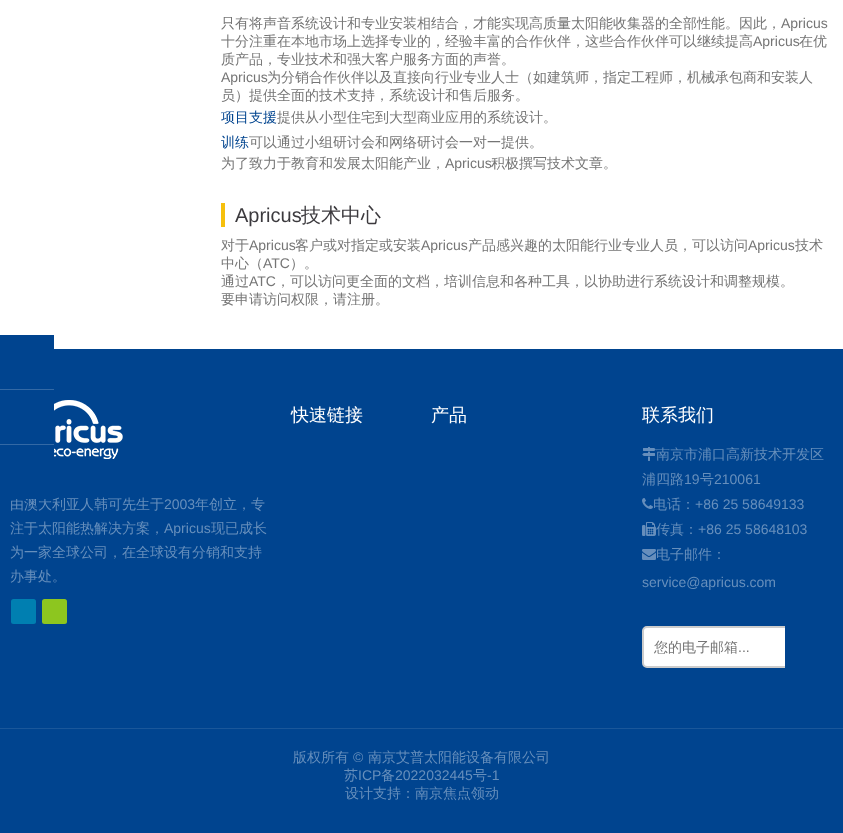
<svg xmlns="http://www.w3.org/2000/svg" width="843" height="833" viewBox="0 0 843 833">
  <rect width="100%" height="100%" fill="#fff"/>
  <path d="M221 203h4v24H221z" fill="#f6c00d"/>
  <path d="M0 349h843v379H0z" fill="#00448f"/>
  <image x="54" y="400" width="69" height="59" href="img/1.png"/>
  <rect x="11" y="599" width="25" height="25" rx="2.5" fill="#007fb1"/>
  <rect x="42" y="599" width="25" height="25" rx="2.5" fill="#8dc61f"/>
  <image x="642" y="447" width="14" height="14" href="img/2.png"/>
  <image x="642" y="498" width="11" height="11" href="img/3.png"/>
  <image x="642" y="522" width="14" height="14" href="img/4.png"/>
  <image x="642" y="549" width="14" height="11" href="img/5.png"/>
  <rect x="643" y="627" width="189" height="40" rx="4" fill="#fff" stroke="#ccc" stroke-width="2"/>
  <path d="M785 626h48v42H785z" fill="#00448f"/>
  <path d="M0 729h843v104H0z" fill="#00448f"/>
  <path d="M0 728h843v1H0z" fill="#1a579a"/>
  <text x="221" y="28" font-family="WenQuanYi Zen Hei" font-size="14" font-weight="500" fill="#757575">只有将声音系统设计和专业安装相结合，才能实现高质量太阳能收集器的全部性能。因此，</text>
  <text x="781" y="28" font-family="Liberation Sans" font-size="14" fill="#757575">Apricus</text>
  <text x="221" y="46" font-family="WenQuanYi Zen Hei" font-size="14" font-weight="500" fill="#757575">十分注重在本地市场上选择专业的，经验丰富的合作伙伴，这些合作伙伴可以继续提高</text>
  <text x="753" y="46" font-family="Liberation Sans" font-size="14" fill="#757575">Apricus</text>
  <g font-family="WenQuanYi Zen Hei" font-size="14" font-weight="500" fill="#757575">
    <text x="799" y="46">在优</text>
    <text x="221" y="64">质产品，专业技术和强大客户服务方面的声誉。</text>
  </g>
  <text x="221" y="82" font-family="Liberation Sans" font-size="14" fill="#757575">Apricus</text>
  <g font-family="WenQuanYi Zen Hei" font-size="14" font-weight="500" fill="#757575">
    <text x="267" y="82">为分销合作伙伴以及直接向行业专业人士（如建筑师，指定工程师，机械承包商和安装人</text>
    <text x="221" y="100">员）提供全面的技术支持，系统设计和售后服务。</text>
  </g>
  <text x="221" y="122" font-family="WenQuanYi Zen Hei" font-size="14" font-weight="500" fill="#00448f">项目支援</text>
  <text x="277" y="122" font-family="WenQuanYi Zen Hei" font-size="14" font-weight="500" fill="#757575">提供从小型住宅到大型商业应用的系统设计。</text>
  <text x="221" y="147" font-family="WenQuanYi Zen Hei" font-size="14" font-weight="500" fill="#00448f">训练</text>
  <g font-family="WenQuanYi Zen Hei" font-size="14" font-weight="500" fill="#757575">
    <text x="249" y="147">可以通过小组研讨会和网络研讨会一对一提供。</text>
    <text x="221" y="168">为了致力于教育和发展太阳能产业，</text>
  </g>
  <text x="445" y="168" font-family="Liberation Sans" font-size="14" fill="#757575">Apricus</text>
  <text x="491" y="168" font-family="WenQuanYi Zen Hei" font-size="14" font-weight="500" fill="#757575">积极撰写技术文章。</text>
  <text x="235" y="222" font-family="Liberation Sans" font-size="20" fill="#3c3a3e">Apricus</text>
  <text x="301" y="222" font-family="WenQuanYi Zen Hei" font-size="20" font-weight="500" fill="#3c3a3e">技术中心</text>
  <text x="221" y="250" font-family="WenQuanYi Zen Hei" font-size="14" font-weight="500" fill="#757575">对于</text>
  <text x="249" y="250" font-family="Liberation Sans" font-size="14" fill="#757575">Apricus</text>
  <text x="295" y="250" font-family="WenQuanYi Zen Hei" font-size="14" font-weight="500" fill="#757575">客户或对指定或安装</text>
  <text x="421" y="250" font-family="Liberation Sans" font-size="14" fill="#757575">Apricus</text>
  <text x="468" y="250" font-family="WenQuanYi Zen Hei" font-size="14" font-weight="500" fill="#757575">产品感兴趣的太阳能行业专业人员，可以访问</text>
  <text x="748" y="250" font-family="Liberation Sans" font-size="14" fill="#757575">Apricus</text>
  <g font-family="WenQuanYi Zen Hei" font-size="14" font-weight="500" fill="#757575">
    <text x="795" y="250">技术</text>
    <text x="221" y="268">中心（</text>
  </g>
  <text x="263" y="268" font-family="Liberation Sans" font-size="14" fill="#757575">ATC</text>
  <g font-family="WenQuanYi Zen Hei" font-size="14" font-weight="500" fill="#757575">
    <text x="290" y="268">）。</text>
    <text x="221" y="286">通过</text>
  </g>
  <text x="249" y="286" font-family="Liberation Sans" font-size="14" fill="#757575">ATC</text>
  <g font-family="WenQuanYi Zen Hei" font-size="14" font-weight="500" fill="#757575">
    <text x="276" y="286">，可以访问更全面的文档，培训信息和各种工具，以协助进行系统设计和调整规模。</text>
    <text x="221" y="304">要申请访问权限，请注册。</text>
  </g>
  <text x="10" y="509" font-family="WenQuanYi Zen Hei" font-size="14" font-weight="500" fill="#668fbc">由澳大利亚人韩可先生于</text>
  <text x="164" y="509" font-family="Liberation Sans" font-size="14" fill="#668fbc">2003</text>
  <g font-family="WenQuanYi Zen Hei" font-size="14" font-weight="500" fill="#668fbc">
    <text x="195" y="509">年创立，专</text>
    <text x="10" y="533">注于太阳能热解决方案，</text>
  </g>
  <text x="164" y="533" font-family="Liberation Sans" font-size="14" fill="#668fbc">Apricus</text>
  <g font-family="WenQuanYi Zen Hei" font-size="14" font-weight="500" fill="#668fbc">
    <text x="211" y="533">现已成长</text>
    <text x="10" y="557">为一家全球公司，在全球设有分销和支持</text>
    <text x="10" y="581">办事处。</text>
  </g>
  <g font-family="WenQuanYi Zen Hei" font-size="18" font-weight="500" fill="#fff">
    <text x="291" y="421">快速链接</text>
    <text x="431" y="421">产品</text>
  </g>
  <path d="M0 335h54v164H0z" fill="#00448f"/>
  <path d="M0 389h54v1H0z" fill="#3369a5"/>
  <path d="M0 444h54v1H0z" fill="#3369a5"/>
  <text x="642" y="421" font-family="WenQuanYi Zen Hei" font-size="18" font-weight="500" fill="#fff">联系我们</text>
  <g font-family="WenQuanYi Zen Hei" font-size="14" font-weight="500" fill="#668fbc">
    <text x="656" y="459">南京市浦口高新技术开发区</text>
    <text x="642" y="484">浦四路</text>
  </g>
  <text x="684" y="484" font-family="Liberation Sans" font-size="14" fill="#668fbc">19</text>
  <text x="700" y="484" font-family="WenQuanYi Zen Hei" font-size="14" font-weight="500" fill="#668fbc">号</text>
  <text x="714" y="484" font-family="Liberation Sans" font-size="14" fill="#668fbc">210061</text>
  <text x="653" y="509" font-family="WenQuanYi Zen Hei" font-size="14" font-weight="500" fill="#668fbc">电话：</text>
  <text x="695" y="509" font-family="Liberation Sans" font-size="14" fill="#668fbc">+86 25 58649133</text>
  <text x="656" y="534" font-family="WenQuanYi Zen Hei" font-size="14" font-weight="500" fill="#668fbc">传真：</text>
  <text x="698" y="534" font-family="Liberation Sans" font-size="14" fill="#668fbc">+86 25 58648103</text>
  <text x="656" y="559" font-family="WenQuanYi Zen Hei" font-size="14" font-weight="500" fill="#668fbc">电子邮件：</text>
  <text x="642" y="587" font-family="Liberation Sans" font-size="14" fill="#668fbc">service@apricus.com</text>
  <text x="654" y="652" font-family="WenQuanYi Zen Hei" font-size="14" font-weight="500" fill="#757575">您的电子邮箱</text>
  <text x="738" y="652" font-family="Liberation Sans" font-size="14" fill="#757575">...</text>
  <text x="293" y="762" font-family="WenQuanYi Zen Hei" font-size="14" font-weight="500" fill="#668fbc">版权所有</text>
  <text x="353" y="762" font-family="Liberation Sans" font-size="14" fill="#668fbc">©</text>
  <g font-family="WenQuanYi Zen Hei" font-size="14" font-weight="500" fill="#668fbc">
    <text x="368" y="762">南京艾普太阳能设备有限公司</text>
    <text x="344" y="780">苏</text>
  </g>
  <text x="358" y="780" font-family="Liberation Sans" font-size="14" fill="#668fbc">ICP</text>
  <text x="381" y="780" font-family="WenQuanYi Zen Hei" font-size="14" font-weight="500" fill="#668fbc">备</text>
  <text x="395" y="780" font-family="Liberation Sans" font-size="14" fill="#668fbc">2022032445</text>
  <text x="473" y="780" font-family="WenQuanYi Zen Hei" font-size="14" font-weight="500" fill="#668fbc">号</text>
  <text x="487" y="780" font-family="Liberation Sans" font-size="14" fill="#668fbc">-1</text>
  <text x="345" y="798" font-family="WenQuanYi Zen Hei" font-size="14" font-weight="500" fill="#668fbc">设计支持：南京焦点领动</text>
</svg>
